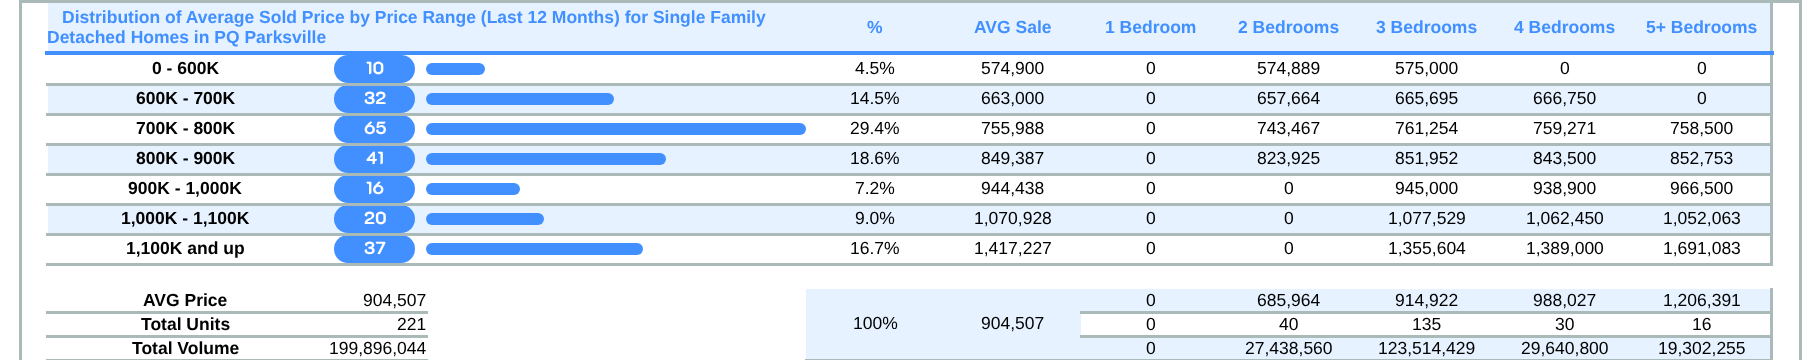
<svg xmlns="http://www.w3.org/2000/svg" width="1820" height="360" viewBox="0 0 1820 360">
  <rect width="100%" height="100%" fill="#fff"/>
  <path d="M1770 1h3v264H1770z" fill="#a9bab9"/>
  <path d="M19 0h1782v3H19z" fill="#a9bab9"/>
  <path d="M1799 0h3v360H1799z" fill="#a9bab9"/>
  <path d="M19 0h3v360H19z" fill="#a9bab9"/>
  <path d="M48 3h1722v48H48z" fill="#e6f2ff"/>
  <path d="M45 51h1729v4H45z" fill="#4290ff"/>
  <rect x="334" y="55" width="81" height="28" rx="14" fill="#4290ff"/>
  <rect x="426" y="63" width="59" height="12" rx="6" fill="#4290ff"/>
  <path d="M48 86h1722v27H48z" fill="#e6f2ff"/>
  <rect x="334" y="85" width="81" height="28" rx="14" fill="#4290ff"/>
  <path d="M46 83h1727v3H46z" fill="#a9bab9"/>
  <rect x="426" y="93" width="188" height="12" rx="6" fill="#4290ff"/>
  <rect x="334" y="115" width="81" height="28" rx="14" fill="#4290ff"/>
  <path d="M46 113h1727v3H46z" fill="#a9bab9"/>
  <rect x="426" y="123" width="380" height="12" rx="6" fill="#4290ff"/>
  <path d="M48 146h1722v27H48z" fill="#e6f2ff"/>
  <rect x="334" y="145" width="81" height="28" rx="14" fill="#4290ff"/>
  <path d="M46 143h1727v3H46z" fill="#a9bab9"/>
  <rect x="426" y="153" width="240" height="12" rx="6" fill="#4290ff"/>
  <rect x="334" y="175" width="81" height="28" rx="14" fill="#4290ff"/>
  <path d="M46 173h1727v3H46z" fill="#a9bab9"/>
  <rect x="426" y="183" width="94" height="12" rx="6" fill="#4290ff"/>
  <path d="M48 206h1722v27H48z" fill="#e6f2ff"/>
  <rect x="334" y="205" width="81" height="28" rx="14" fill="#4290ff"/>
  <path d="M46 203h1727v3H46z" fill="#a9bab9"/>
  <rect x="426" y="213" width="118" height="12" rx="6" fill="#4290ff"/>
  <rect x="334" y="235" width="81" height="28" rx="14" fill="#4290ff"/>
  <path d="M46 233h1727v3H46z" fill="#a9bab9"/>
  <rect x="426" y="243" width="217" height="12" rx="6" fill="#4290ff"/>
  <path d="M46 263h1727v3H46z" fill="#a9bab9"/>
  <path d="M46 311h382v3H46z" fill="#a9bab9"/>
  <path d="M1081 289h689v22H1081z" fill="#e6f2ff"/>
  <path d="M806 289h275v70H806z" fill="#e6f2ff"/>
  <path d="M1770 288h3v72H1770z" fill="#a9bab9"/>
  <path d="M1080 311h693v3H1080z" fill="#a9bab9"/>
  <path d="M46 335h382v3H46z" fill="#a9bab9"/>
  <path d="M1080 335h693v3H1080z" fill="#a9bab9"/>
  <path d="M46 359h382v1H46z" fill="#a9bab9"/>
  <path d="M1081 338h689v21H1081z" fill="#e6f2ff"/>
  <path d="M805 359h968v1H805z" fill="#a9bab9"/>
  <g font-family="Liberation Sans" font-size="17.5" font-weight="bold" fill="#4290ff">
    <text x="62" y="23">Distribution of Average Sold Price by Price Range (Last 12 Months) for Single Family</text>
    <text x="47" y="43">Detached Homes in PQ Parksville</text>
    <text x="867" y="33">%</text>
    <text x="974" y="33">AVG Sale</text>
    <text x="1105" y="33">1 Bedroom</text>
    <text x="1238" y="33">2 Bedrooms</text>
    <text x="1376" y="33">3 Bedrooms</text>
    <text x="1514" y="33">4 Bedrooms</text>
    <text x="1646" y="33">5+ Bedrooms</text>
  </g>
  <text x="152" y="74" font-family="Liberation Sans" font-size="17.5" font-weight="bold" fill="#000">0 - 600K</text>
  <text x="366" y="74" font-family="'K2D'" font-size="17.5" font-weight="bold" fill="#fff">10</text>
  <g font-family="Liberation Sans" font-size="17.5" fill="#000">
    <text x="855" y="74">4.5%</text>
    <text x="981" y="74">574,900</text>
    <text x="1146" y="74">0</text>
    <text x="1257" y="74">574,889</text>
    <text x="1395" y="74">575,000</text>
    <text x="1560" y="74">0</text>
    <text x="1697" y="74">0</text>
  </g>
  <text x="136" y="104" font-family="Liberation Sans" font-size="17.5" font-weight="bold" fill="#000">600K - 700K</text>
  <text x="364" y="104" font-family="'K2D'" font-size="17.5" font-weight="bold" fill="#fff">32</text>
  <g font-family="Liberation Sans" font-size="17.5" fill="#000">
    <text x="850" y="104">14.5%</text>
    <text x="981" y="104">663,000</text>
    <text x="1146" y="104">0</text>
    <text x="1257" y="104">657,664</text>
    <text x="1395" y="104">665,695</text>
    <text x="1533" y="104">666,750</text>
    <text x="1697" y="104">0</text>
  </g>
  <text x="136" y="134" font-family="Liberation Sans" font-size="17.5" font-weight="bold" fill="#000">700K - 800K</text>
  <text x="364" y="134" font-family="'K2D'" font-size="17.5" font-weight="bold" fill="#fff">65</text>
  <g font-family="Liberation Sans" font-size="17.5" fill="#000">
    <text x="850" y="134">29.4%</text>
    <text x="981" y="134">755,988</text>
    <text x="1146" y="134">0</text>
    <text x="1257" y="134">743,467</text>
    <text x="1395" y="134">761,254</text>
    <text x="1533" y="134">759,271</text>
    <text x="1670" y="134">758,500</text>
  </g>
  <text x="136" y="164" font-family="Liberation Sans" font-size="17.5" font-weight="bold" fill="#000">800K - 900K</text>
  <text x="366" y="164" font-family="'K2D'" font-size="17.5" font-weight="bold" fill="#fff">41</text>
  <g font-family="Liberation Sans" font-size="17.5" fill="#000">
    <text x="850" y="164">18.6%</text>
    <text x="981" y="164">849,387</text>
    <text x="1146" y="164">0</text>
    <text x="1257" y="164">823,925</text>
    <text x="1395" y="164">851,952</text>
    <text x="1533" y="164">843,500</text>
    <text x="1670" y="164">852,753</text>
  </g>
  <text x="128" y="194" font-family="Liberation Sans" font-size="17.5" font-weight="bold" fill="#000">900K - 1,000K</text>
  <text x="366" y="194" font-family="'K2D'" font-size="17.5" font-weight="bold" fill="#fff">16</text>
  <g font-family="Liberation Sans" font-size="17.5" fill="#000">
    <text x="855" y="194">7.2%</text>
    <text x="981" y="194">944,438</text>
    <text x="1146" y="194">0</text>
    <text x="1284" y="194">0</text>
    <text x="1395" y="194">945,000</text>
    <text x="1533" y="194">938,900</text>
    <text x="1670" y="194">966,500</text>
  </g>
  <text x="121" y="224" font-family="Liberation Sans" font-size="17.5" font-weight="bold" fill="#000">1,000K - 1,100K</text>
  <text x="364" y="224" font-family="'K2D'" font-size="17.5" font-weight="bold" fill="#fff">20</text>
  <g font-family="Liberation Sans" font-size="17.5" fill="#000">
    <text x="855" y="224">9.0%</text>
    <text x="974" y="224">1,070,928</text>
    <text x="1146" y="224">0</text>
    <text x="1284" y="224">0</text>
    <text x="1388" y="224">1,077,529</text>
    <text x="1526" y="224">1,062,450</text>
    <text x="1663" y="224">1,052,063</text>
  </g>
  <text x="126" y="254" font-family="Liberation Sans" font-size="17.5" font-weight="bold" fill="#000">1,100K and up</text>
  <text x="364" y="254" font-family="'K2D'" font-size="17.5" font-weight="bold" fill="#fff">37</text>
  <g font-family="Liberation Sans" font-size="17.5" fill="#000">
    <text x="850" y="254">16.7%</text>
    <text x="974" y="254">1,417,227</text>
    <text x="1146" y="254">0</text>
    <text x="1284" y="254">0</text>
    <text x="1388" y="254">1,355,604</text>
    <text x="1526" y="254">1,389,000</text>
    <text x="1663" y="254">1,691,083</text>
  </g>
  <text x="143" y="306" font-family="Liberation Sans" font-size="17.5" font-weight="bold" fill="#000">AVG Price</text>
  <g font-family="Liberation Sans" font-size="17.5" fill="#000">
    <text x="363" y="306">904,507</text>
    <text x="1146" y="306">0</text>
    <text x="1257" y="306">685,964</text>
    <text x="1395" y="306">914,922</text>
    <text x="1533" y="306">988,027</text>
    <text x="1663" y="306">1,206,391</text>
    <text x="853" y="329">100%</text>
    <text x="981" y="329">904,507</text>
  </g>
  <text x="141" y="330" font-family="Liberation Sans" font-size="17.5" font-weight="bold" fill="#000">Total Units</text>
  <g font-family="Liberation Sans" font-size="17.5" fill="#000">
    <text x="397" y="330">221</text>
    <text x="1146" y="330">0</text>
    <text x="1279" y="330">40</text>
    <text x="1412" y="330">135</text>
    <text x="1555" y="330">30</text>
    <text x="1692" y="330">16</text>
  </g>
  <text x="132" y="354" font-family="Liberation Sans" font-size="17.5" font-weight="bold" fill="#000">Total Volume</text>
  <g font-family="Liberation Sans" font-size="17.5" fill="#000">
    <text x="329" y="354">199,896,044</text>
    <text x="1146" y="354">0</text>
    <text x="1245" y="354">27,438,560</text>
    <text x="1378" y="354">123,514,429</text>
    <text x="1521" y="354">29,640,800</text>
    <text x="1658" y="354">19,302,255</text>
  </g>
</svg>
